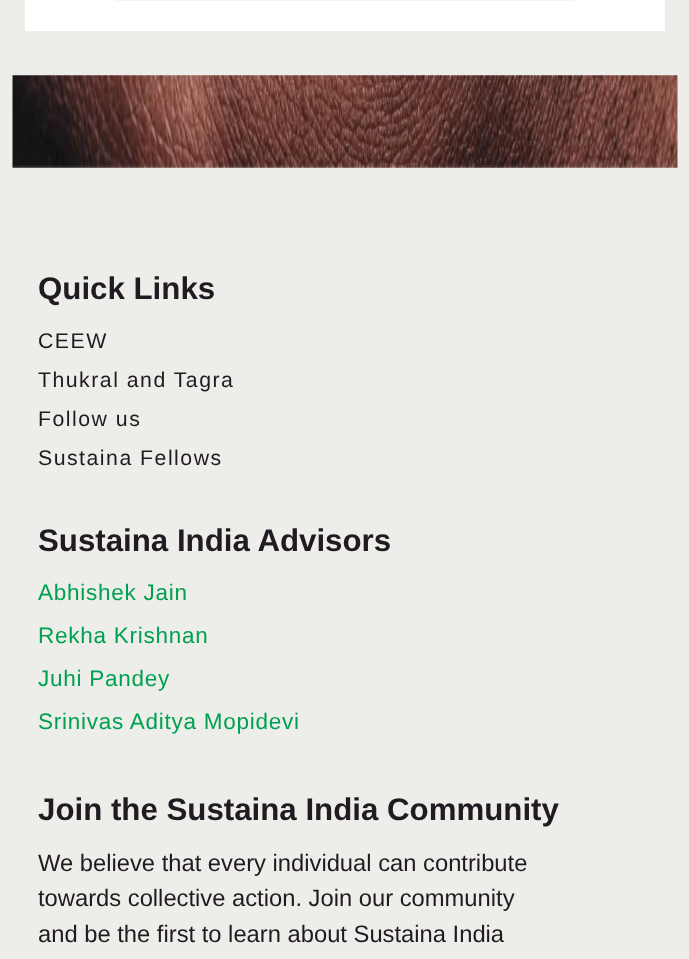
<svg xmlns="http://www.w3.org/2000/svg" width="689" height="959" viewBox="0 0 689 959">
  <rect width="100%" height="100%" fill="#edede9"/>
  <path d="M25 0h640v31H25z" fill="#fff"/>
  <rect x="114.5" y="-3.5" width="461" height="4" rx="2" fill="none" stroke="#f2f5f7"/>
  <image x="12" y="75" width="666" height="93" href="img/1.png"/>
  <text x="38" y="299" font-family="Liberation Sans" font-size="31.25" font-weight="bold" fill="#211a21">Quick Links</text>
  <g font-family="Liberation Sans" font-size="21.25" letter-spacing="1.5" fill="#211a21">
    <text x="38" y="348">CEEW</text>
    <text x="38" y="387">Thukral and Tagra</text>
    <text x="38" y="426">Follow us</text>
    <text x="38" y="465">Sustaina Fellows</text>
  </g>
  <text x="38" y="551" font-family="Liberation Sans" font-size="31.25" font-weight="bold" fill="#211a21">Sustaina India Advisors</text>
  <g font-family="Liberation Sans" font-size="22.5" letter-spacing="0.75" fill="#00a051">
    <text x="38" y="600">Abhishek Jain</text>
    <text x="38" y="643">Rekha Krishnan</text>
    <text x="38" y="686">Juhi Pandey</text>
    <text x="38" y="729">Srinivas Aditya Mopidevi</text>
  </g>
  <text x="38" y="820" font-family="Liberation Sans" font-size="31.25" font-weight="bold" fill="#211a21">Join the Sustaina India Community</text>
  <g font-family="Liberation Sans" font-size="23.75" fill="#211a21">
    <text x="38" y="871">We believe that every individual can contribute</text>
    <text x="38" y="906">towards collective action. Join our community</text>
    <text x="38" y="942">and be the first to learn about Sustaina India</text>
  </g>
</svg>
